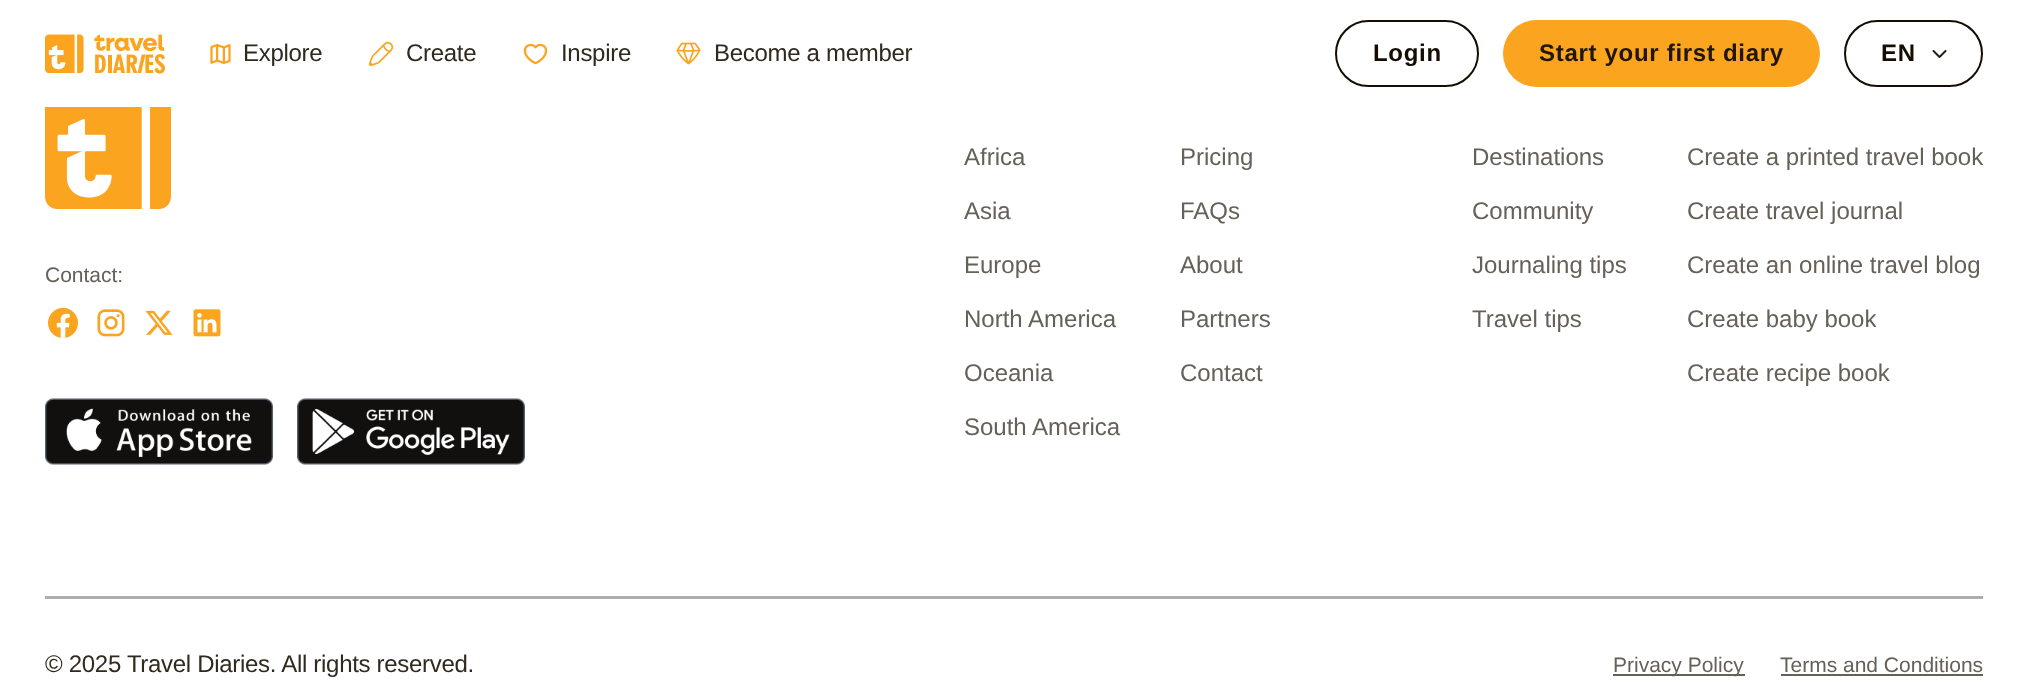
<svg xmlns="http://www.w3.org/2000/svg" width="2027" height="689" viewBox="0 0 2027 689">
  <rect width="100%" height="100%" fill="#fff"/>
  <image x="45" y="34" width="120" height="40" href="img/1.png"/>
  <image x="210" y="44" width="21" height="21" href="img/2.png"/>
  <image x="368" y="41" width="26" height="26" href="img/3.png"/>
  <image x="523" y="43" width="25" height="22" href="img/4.png"/>
  <image x="676" y="42" width="25" height="23" href="img/5.png"/>
  <rect x="1336" y="21" width="142" height="65" rx="32.5" fill="none" stroke="#150d02" stroke-width="2"/>
  <rect x="1503" y="20" width="317" height="67" rx="33.5" fill="#faa41f"/>
  <rect x="1845" y="21" width="137" height="65" rx="32.5" fill="none" stroke="#150d02" stroke-width="2"/>
  <image x="1932" y="50" width="15" height="8" href="img/6.png"/>
  <image x="45" y="107" width="126" height="102" href="img/7.png"/>
  <image x="48" y="307" width="30" height="31" href="img/8.png"/>
  <image x="97" y="309" width="28" height="28" href="img/9.png"/>
  <image x="145" y="310" width="28" height="25" href="img/10.png"/>
  <image x="193" y="309" width="28" height="28" href="img/11.png"/>
  <image x="45" y="398" width="228" height="67" href="img/12.png"/>
  <image x="297" y="398" width="228" height="67" href="img/13.png"/>
  <path d="M45 596h1938v3H45z" fill="#adadad"/>
  <path d="M1613 674h132v2H1613z" fill="#656158"/>
  <path d="M1781 674h202v2H1781z" fill="#656158"/>
  <g font-family="Liberation Sans" font-size="24" letter-spacing="-0.3" fill="#2f291e">
    <text x="243" y="61">Explore</text>
    <text x="406" y="61">Create</text>
    <text x="561" y="61">Inspire</text>
    <text x="714" y="61">Become a member</text>
  </g>
  <text x="1373" y="61" font-family="Liberation Sans" font-size="24" font-weight="bold" letter-spacing="0.7" fill="#150d02">Login</text>
  <text x="1539" y="61" font-family="Liberation Sans" font-size="24" font-weight="bold" letter-spacing="0.7" fill="#211504">Start your first diary</text>
  <text x="1881" y="61" font-family="Liberation Sans" font-size="24" font-weight="bold" letter-spacing="0.7" fill="#150d02">EN</text>
  <text x="45" y="282" font-family="Liberation Sans" font-size="21" fill="#656158">Contact:</text>
  <g font-family="Liberation Sans" font-size="24" fill="#656158">
    <text x="964" y="165">Africa</text>
    <text x="964" y="219">Asia</text>
    <text x="964" y="273">Europe</text>
    <text x="964" y="327">North America</text>
    <text x="964" y="381">Oceania</text>
    <text x="964" y="435">South America</text>
    <text x="1180" y="165">Pricing</text>
    <text x="1180" y="219">FAQs</text>
    <text x="1180" y="273">About</text>
    <text x="1180" y="327">Partners</text>
    <text x="1180" y="381">Contact</text>
    <text x="1472" y="165">Destinations</text>
    <text x="1472" y="219">Community</text>
    <text x="1472" y="273">Journaling tips</text>
    <text x="1472" y="327">Travel tips</text>
    <text x="1687" y="165">Create a printed travel book</text>
    <text x="1687" y="219">Create travel journal</text>
    <text x="1687" y="273">Create an online travel blog</text>
    <text x="1687" y="327">Create baby book</text>
    <text x="1687" y="381">Create recipe book</text>
  </g>
  <text x="45" y="672" font-family="Liberation Sans" font-size="24" letter-spacing="-0.3" fill="#2f291e">© 2025 Travel Diaries. All rights reserved.</text>
  <g font-family="Liberation Sans" font-size="21" fill="#656158">
    <text x="1613" y="672">Privacy Policy</text>
    <text x="1780" y="672">Terms and Conditions</text>
  </g>
</svg>
